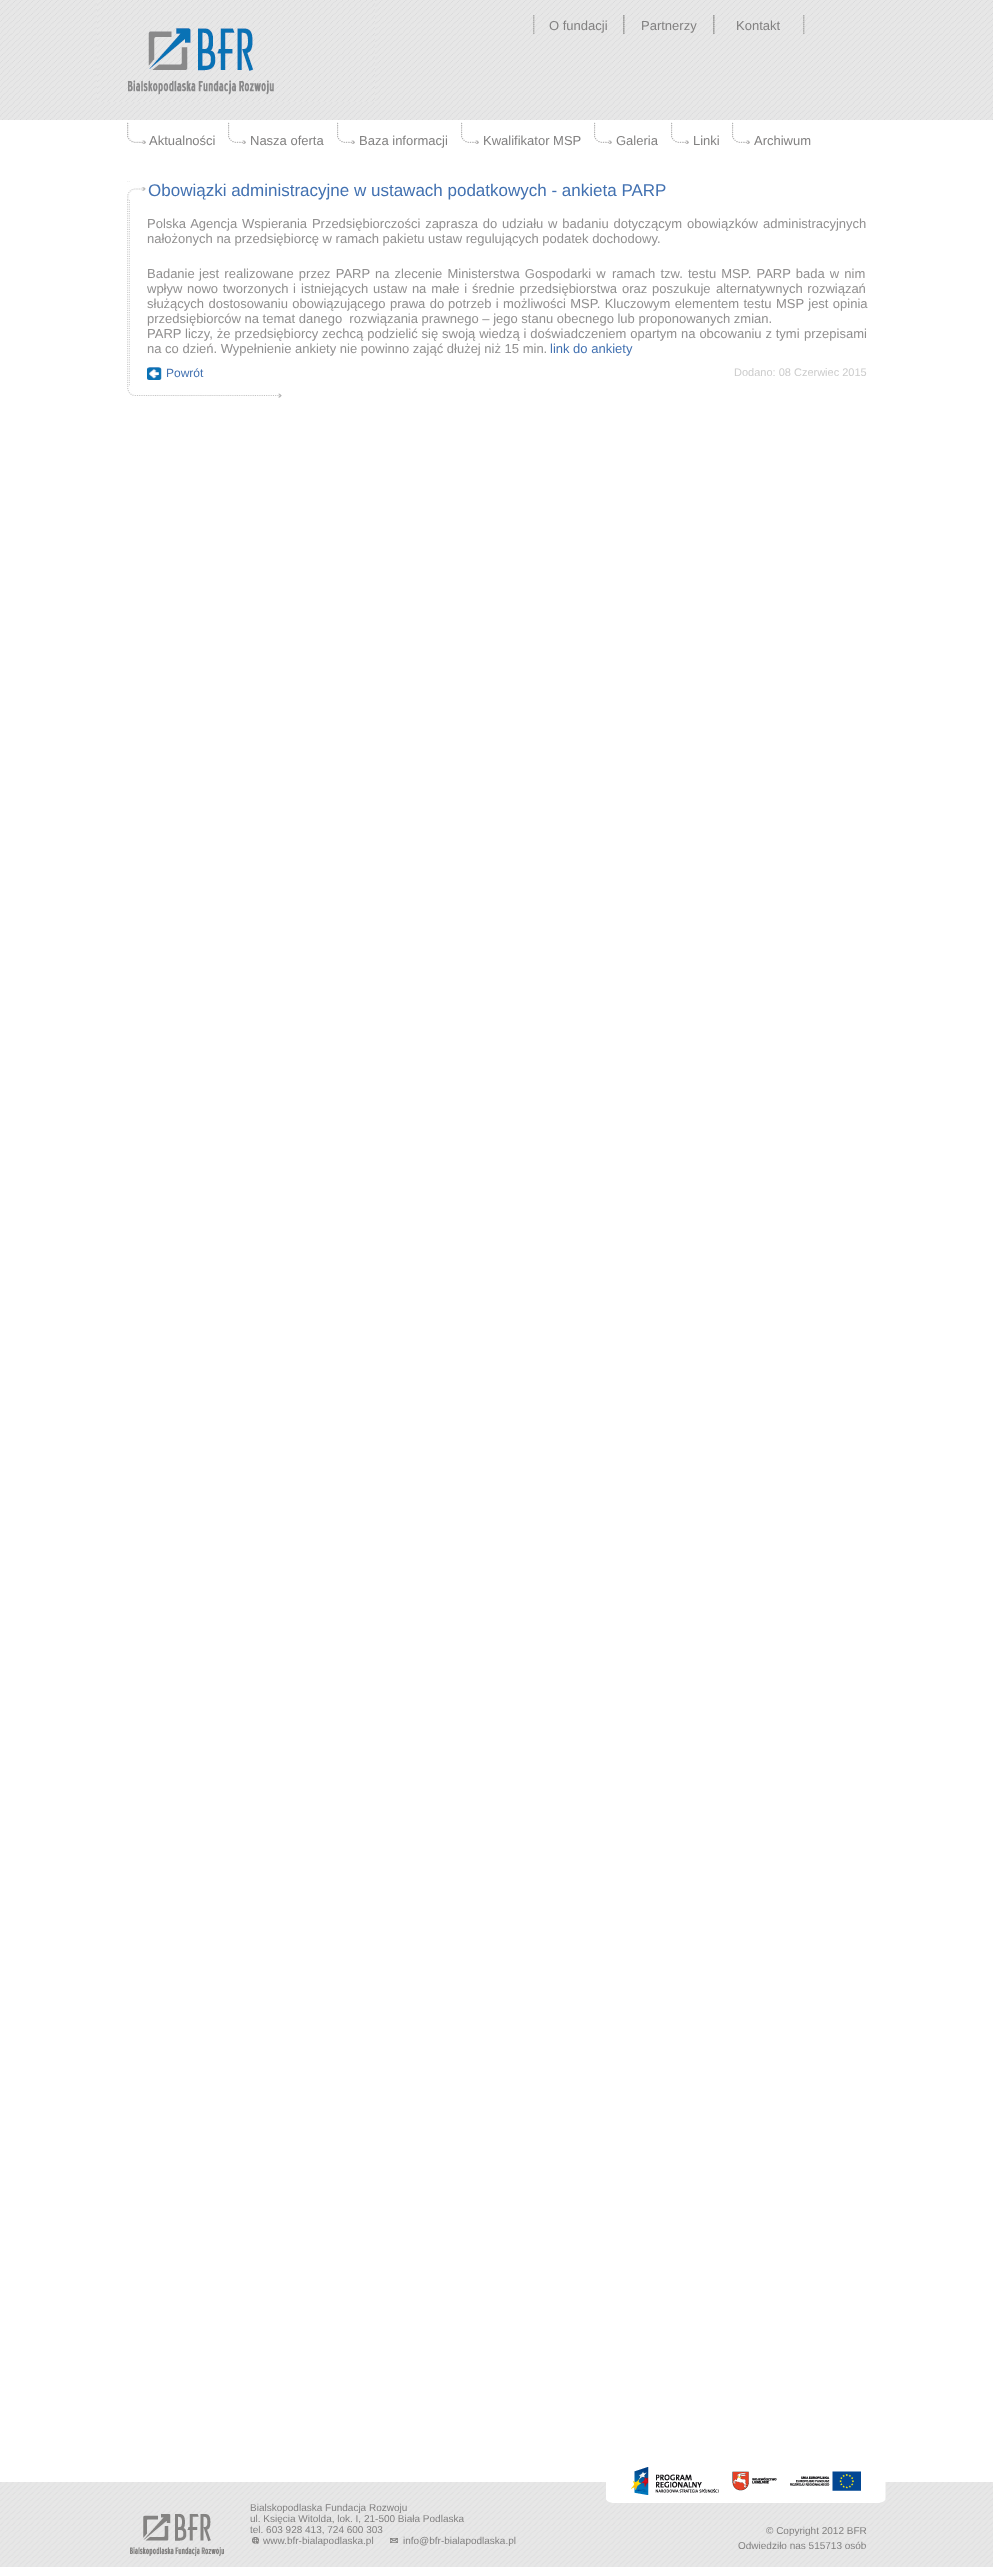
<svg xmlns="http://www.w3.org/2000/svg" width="993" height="2567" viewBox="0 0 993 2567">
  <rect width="100%" height="100%" fill="#fff"/>
  <image x="0" y="0" width="993" height="120" href="img/1.png"/>
  <image x="97" y="0" width="278" height="102" href="img/2.png"/>
  <image x="533" y="15" width="92" height="19" href="img/3.png"/>
  <image x="623" y="15" width="92" height="19" href="img/4.png"/>
  <image x="713" y="15" width="92" height="19" href="img/4.png"/>
  <image x="127" y="122" width="19" height="22" href="img/5.png"/>
  <image x="228" y="122" width="18" height="22" href="img/6.png"/>
  <image x="337" y="122" width="18" height="22" href="img/6.png"/>
  <image x="461" y="122" width="18" height="22" href="img/6.png"/>
  <image x="594" y="122" width="18" height="22" href="img/6.png"/>
  <image x="671" y="122" width="18" height="22" href="img/6.png"/>
  <image x="732" y="122" width="18" height="22" href="img/6.png"/>
  <image x="127" y="181" width="3" height="205" href="img/7.png"/>
  <image x="127" y="182" width="19" height="18" href="img/8.png"/>
  <image x="147" y="367" width="15" height="13" href="img/9.png"/>
  <image x="127" y="386" width="155" height="12" href="img/10.png"/>
  <image x="0" y="2482" width="993" height="85" href="img/11.png"/>
  <image x="606" y="2467" width="280" height="36" href="img/12.png"/>
  <image x="130" y="2514" width="94" height="42" href="img/13.png"/>
  <image x="252" y="2537" width="7" height="7" href="img/14.png"/>
  <image x="390" y="2538" width="8" height="5" href="img/15.png"/>
  <g font-family="Liberation Sans" font-size="13" fill="#828181">
    <text x="549" y="30">O fundacji</text>
    <text x="641" y="30">Partnerzy</text>
    <text x="736" y="30">Kontakt</text>
    <text x="149" y="145">Aktualności</text>
    <text x="250" y="145">Nasza oferta</text>
    <text x="359" y="145">Baza informacji</text>
    <text x="483" y="145">Kwalifikator MSP</text>
    <text x="616" y="145">Galeria</text>
    <text x="693" y="145">Linki</text>
    <text x="754" y="145">Archiwum</text>
  </g>
  <text x="148" y="196" font-family="Liberation Sans" font-size="17" fill="#4271b1">Obowiązki administracyjne w ustawach podatkowych - ankieta PARP</text>
  <g font-family="Liberation Sans" font-size="13" fill="#919090">
    <text x="147" y="228" word-spacing="1.25">Polska Agencja Wspierania Przedsiębiorczości zaprasza do udziału w badaniu dotyczącym obowiązków</text>
    <text x="763" y="228">administracyjnych</text>
    <text x="147" y="243">nałożonych na przedsiębiorcę w ramach pakietu ustaw regulujących podatek dochodowy.</text>
    <text x="147" y="278">Badanie</text>
    <text x="199" y="278" word-spacing="1.5">jest realizowane przez PARP na zlecenie Ministerstwa Gospodarki w</text>
    <text x="612" y="278" word-spacing="1.5">ramach tzw. testu MSP. PARP bada w nim</text>
    <text x="147" y="293" word-spacing="1">wpływ nowo tworzonych i</text>
    <text x="301" y="293" word-spacing="1.25">istniejących ustaw na małe i średnie przedsiębiorstwa oraz poszukuje</text>
    <text x="716" y="293" word-spacing="1">alternatywnych rozwiązań</text>
    <text x="147" y="308" word-spacing="0.75">służących dostosowaniu obowiązującego prawa do</text>
    <text x="448" y="308" word-spacing="0.75">potrzeb i możliwości MSP. Kluczowym elementem testu MSP jest opinia</text>
    <text x="147" y="323" xml:space="preserve">przedsiębiorców na temat danego  rozwiązania prawnego – jego stanu obecnego lub proponowanych zmian.</text>
    <text x="147" y="338" word-spacing="0.25">PARP liczy, że przedsiębiorcy zechcą podzielić się swoją wiedzą i doświadczeniem opartym na obcowaniu z tymi</text>
    <text x="804" y="338">przepisami</text>
    <text x="147" y="353">na co dzień. Wypełnienie ankiety nie powinno zająć dłużej niż 15 min.</text>
  </g>
  <text x="550" y="353" font-family="Liberation Sans" font-size="13" fill="#4271b1">link do ankiety</text>
  <text x="166" y="377" font-family="Liberation Sans" font-size="12" fill="#4271b1">Powrót</text>
  <text x="734" y="376" font-family="Liberation Sans" font-size="11" fill="#ccc">Dodano: 08 Czerwiec 2015</text>
  <g font-family="Liberation Sans" font-size="10" fill="#828181">
    <text x="250" y="2511">Bialskopodlaska Fundacja Rozwoju</text>
    <text x="250" y="2522">ul. Księcia Witolda, lok. I, 21-500 Biała Podlaska</text>
    <text x="250" y="2533">tel. 603 928 413, 724 600 303</text>
    <text x="263" y="2544">www.bfr-bialapodlaska.pl</text>
    <text x="403" y="2544">info@bfr-bialapodlaska.pl</text>
    <text x="766" y="2534">© Copyright 2012 BFR</text>
    <text x="738" y="2549">Odwiedziło nas 515713 osób</text>
  </g>
</svg>
